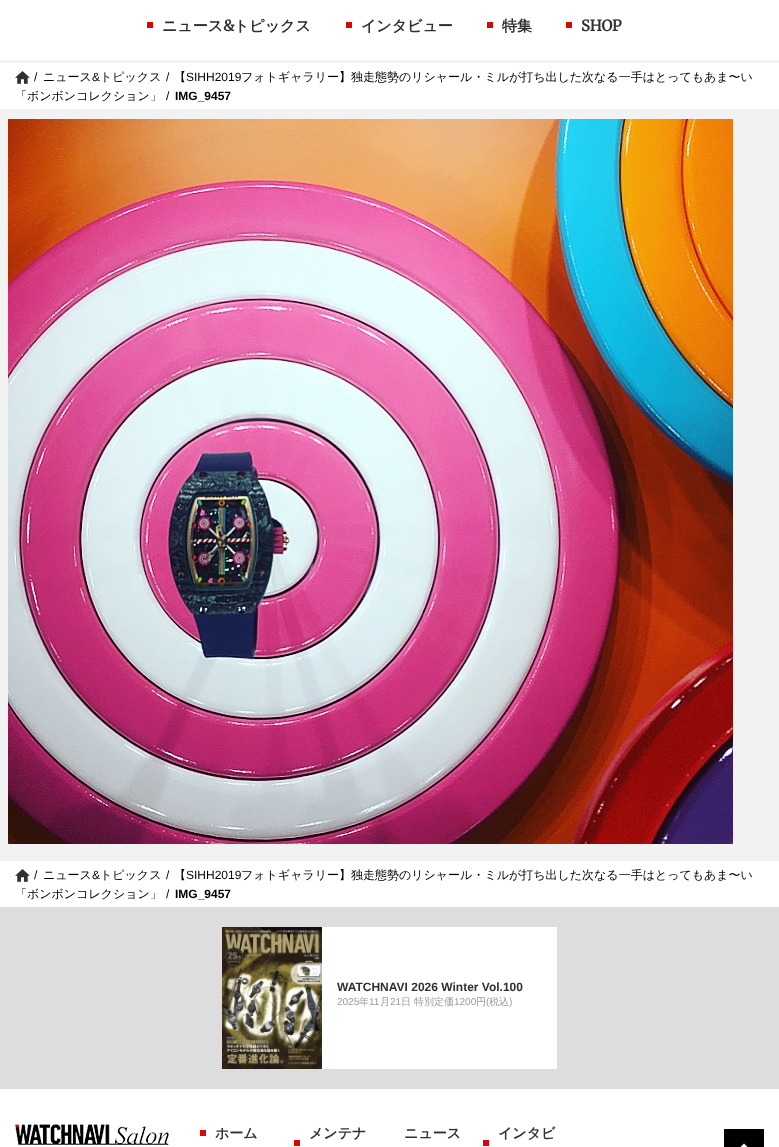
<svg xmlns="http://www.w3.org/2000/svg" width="779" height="1147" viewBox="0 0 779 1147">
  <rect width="100%" height="100%" fill="#fff"/>
  <path d="M147 22h6v6H147z" fill="#db0600"/>
  <path d="M346 22h6v6H346z" fill="#db0600"/>
  <path d="M487 22h6v6H487z" fill="#db0600"/>
  <path d="M566 22h6v6H566z" fill="#db0600"/>
  <path d="M0 60h779v3H0z" fill="#f2f2f2"/>
  <image x="15" y="71" width="15" height="13" href="img/1.png"/>
  <path d="M0 109h779v752H0z" fill="#f2f2f2"/>
  <image x="8" y="119" width="725" height="725" href="img/2.png"/>
  <image x="15" y="869" width="15" height="13" href="img/1.png"/>
  <path d="M0 907h779v182H0z" fill="#ddd"/>
  <path d="M322 927h235v142H322z" fill="#fff"/>
  <image x="222" y="927" width="100" height="142" href="img/3.png"/>
  <image x="15" y="1124" width="154" height="21" href="img/4.png"/>
  <path d="M200 1130h6v6H200z" fill="#db0600"/>
  <path d="M294 1140h6v6H294z" fill="#db0600"/>
  <path d="M483 1140h6v6H483z" fill="#db0600"/>
  <path d="M724 1129h40v18H724z" fill="#000"/>
  <path d="M744 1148L752 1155.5L754 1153.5L744 1143.5L734 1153.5L736.5 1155.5Z" fill="#fff" fill-rule="evenodd"/>
  <text x="162" y="31" font-family="WenQuanYi Zen Hei" font-size="15" font-weight="bold" fill="#303030">ニュース</text>
  <text x="223" y="31" font-family="Merriweather" font-size="15" font-weight="bold" fill="#303030">&amp;</text>
  <g font-family="WenQuanYi Zen Hei" font-size="15" font-weight="bold" fill="#303030">
    <text x="234" y="31">トピックス</text>
    <text x="361" y="31">インタビュー</text>
    <text x="502" y="31">特集</text>
  </g>
  <text x="581" y="31" font-family="Merriweather" font-size="15" font-weight="bold" fill="#303030">SHOP</text>
  <text x="34" y="81" font-family="Liberation Sans" font-size="12" fill="#000">/</text>
  <text x="43" y="81" font-family="WenQuanYi Zen Hei" font-size="12" font-weight="500" fill="#000">ニュース</text>
  <text x="92" y="81" font-family="Liberation Sans" font-size="12" fill="#000">&amp;</text>
  <text x="100" y="81" font-family="WenQuanYi Zen Hei" font-size="12" font-weight="500" fill="#000">トピックス</text>
  <text x="166" y="81" font-family="Liberation Sans" font-size="12" fill="#000">/</text>
  <text x="174" y="81" font-family="WenQuanYi Zen Hei" font-size="12" font-weight="500" fill="#000">【</text>
  <text x="186" y="81" font-family="Liberation Sans" font-size="12" fill="#000">SIHH2019</text>
  <g font-family="WenQuanYi Zen Hei" font-size="12" font-weight="500" fill="#000">
    <text x="241" y="81">フォトギャラリー】独走態勢のリシャール・ミルが打ち出した次なる一手はとってもあま〜い</text>
    <text x="15" y="100">「ボンボンコレクション」</text>
  </g>
  <text x="166" y="100" font-family="Liberation Sans" font-size="12" fill="#000">/</text>
  <text x="175" y="100" font-family="Liberation Sans" font-size="12" font-weight="bold" fill="#000">IMG_9457</text>
  <text x="34" y="879" font-family="Liberation Sans" font-size="12" fill="#000">/</text>
  <text x="43" y="879" font-family="WenQuanYi Zen Hei" font-size="12" font-weight="500" fill="#000">ニュース</text>
  <text x="92" y="879" font-family="Liberation Sans" font-size="12" fill="#000">&amp;</text>
  <text x="100" y="879" font-family="WenQuanYi Zen Hei" font-size="12" font-weight="500" fill="#000">トピックス</text>
  <text x="166" y="879" font-family="Liberation Sans" font-size="12" fill="#000">/</text>
  <text x="174" y="879" font-family="WenQuanYi Zen Hei" font-size="12" font-weight="500" fill="#000">【</text>
  <text x="186" y="879" font-family="Liberation Sans" font-size="12" fill="#000">SIHH2019</text>
  <g font-family="WenQuanYi Zen Hei" font-size="12" font-weight="500" fill="#000">
    <text x="241" y="879">フォトギャラリー】独走態勢のリシャール・ミルが打ち出した次なる一手はとってもあま〜い</text>
    <text x="15" y="898">「ボンボンコレクション」</text>
  </g>
  <text x="166" y="898" font-family="Liberation Sans" font-size="12" fill="#000">/</text>
  <text x="175" y="898" font-family="Liberation Sans" font-size="12" font-weight="bold" fill="#000">IMG_9457</text>
  <text x="337" y="991" font-family="Liberation Sans" font-size="12" font-weight="bold" fill="#303030">WATCHNAVI 2026 Winter Vol.100</text>
  <text x="337" y="1005" font-family="Liberation Sans" font-size="10" fill="#999">2025</text>
  <text x="359" y="1005" font-family="WenQuanYi Zen Hei" font-size="10" font-weight="500" fill="#999">年</text>
  <text x="369" y="1005" font-family="Liberation Sans" font-size="10" fill="#999">11</text>
  <text x="380" y="1005" font-family="WenQuanYi Zen Hei" font-size="10" font-weight="500" fill="#999">月</text>
  <text x="390" y="1005" font-family="Liberation Sans" font-size="10" fill="#999">21</text>
  <text x="401" y="1005" font-family="WenQuanYi Zen Hei" font-size="10" font-weight="500" fill="#999">日 特別定価</text>
  <text x="454" y="1005" font-family="Liberation Sans" font-size="10" fill="#999">1200</text>
  <text x="476" y="1005" font-family="WenQuanYi Zen Hei" font-size="10" font-weight="500" fill="#999">円</text>
  <text x="486" y="1005" font-family="Liberation Sans" font-size="10" fill="#999">(</text>
  <text x="489" y="1005" font-family="WenQuanYi Zen Hei" font-size="10" font-weight="500" fill="#999">税込</text>
  <text x="509" y="1005" font-family="Liberation Sans" font-size="10" fill="#999">)</text>
  <g font-family="WenQuanYi Zen Hei" font-size="14" font-weight="bold" fill="#303030">
    <text x="215" y="1138">ホーム</text>
    <text x="309" y="1138">メンテナ</text>
    <text x="404" y="1138">ニュース</text>
    <text x="498" y="1138">インタビ</text>
  </g>
</svg>
